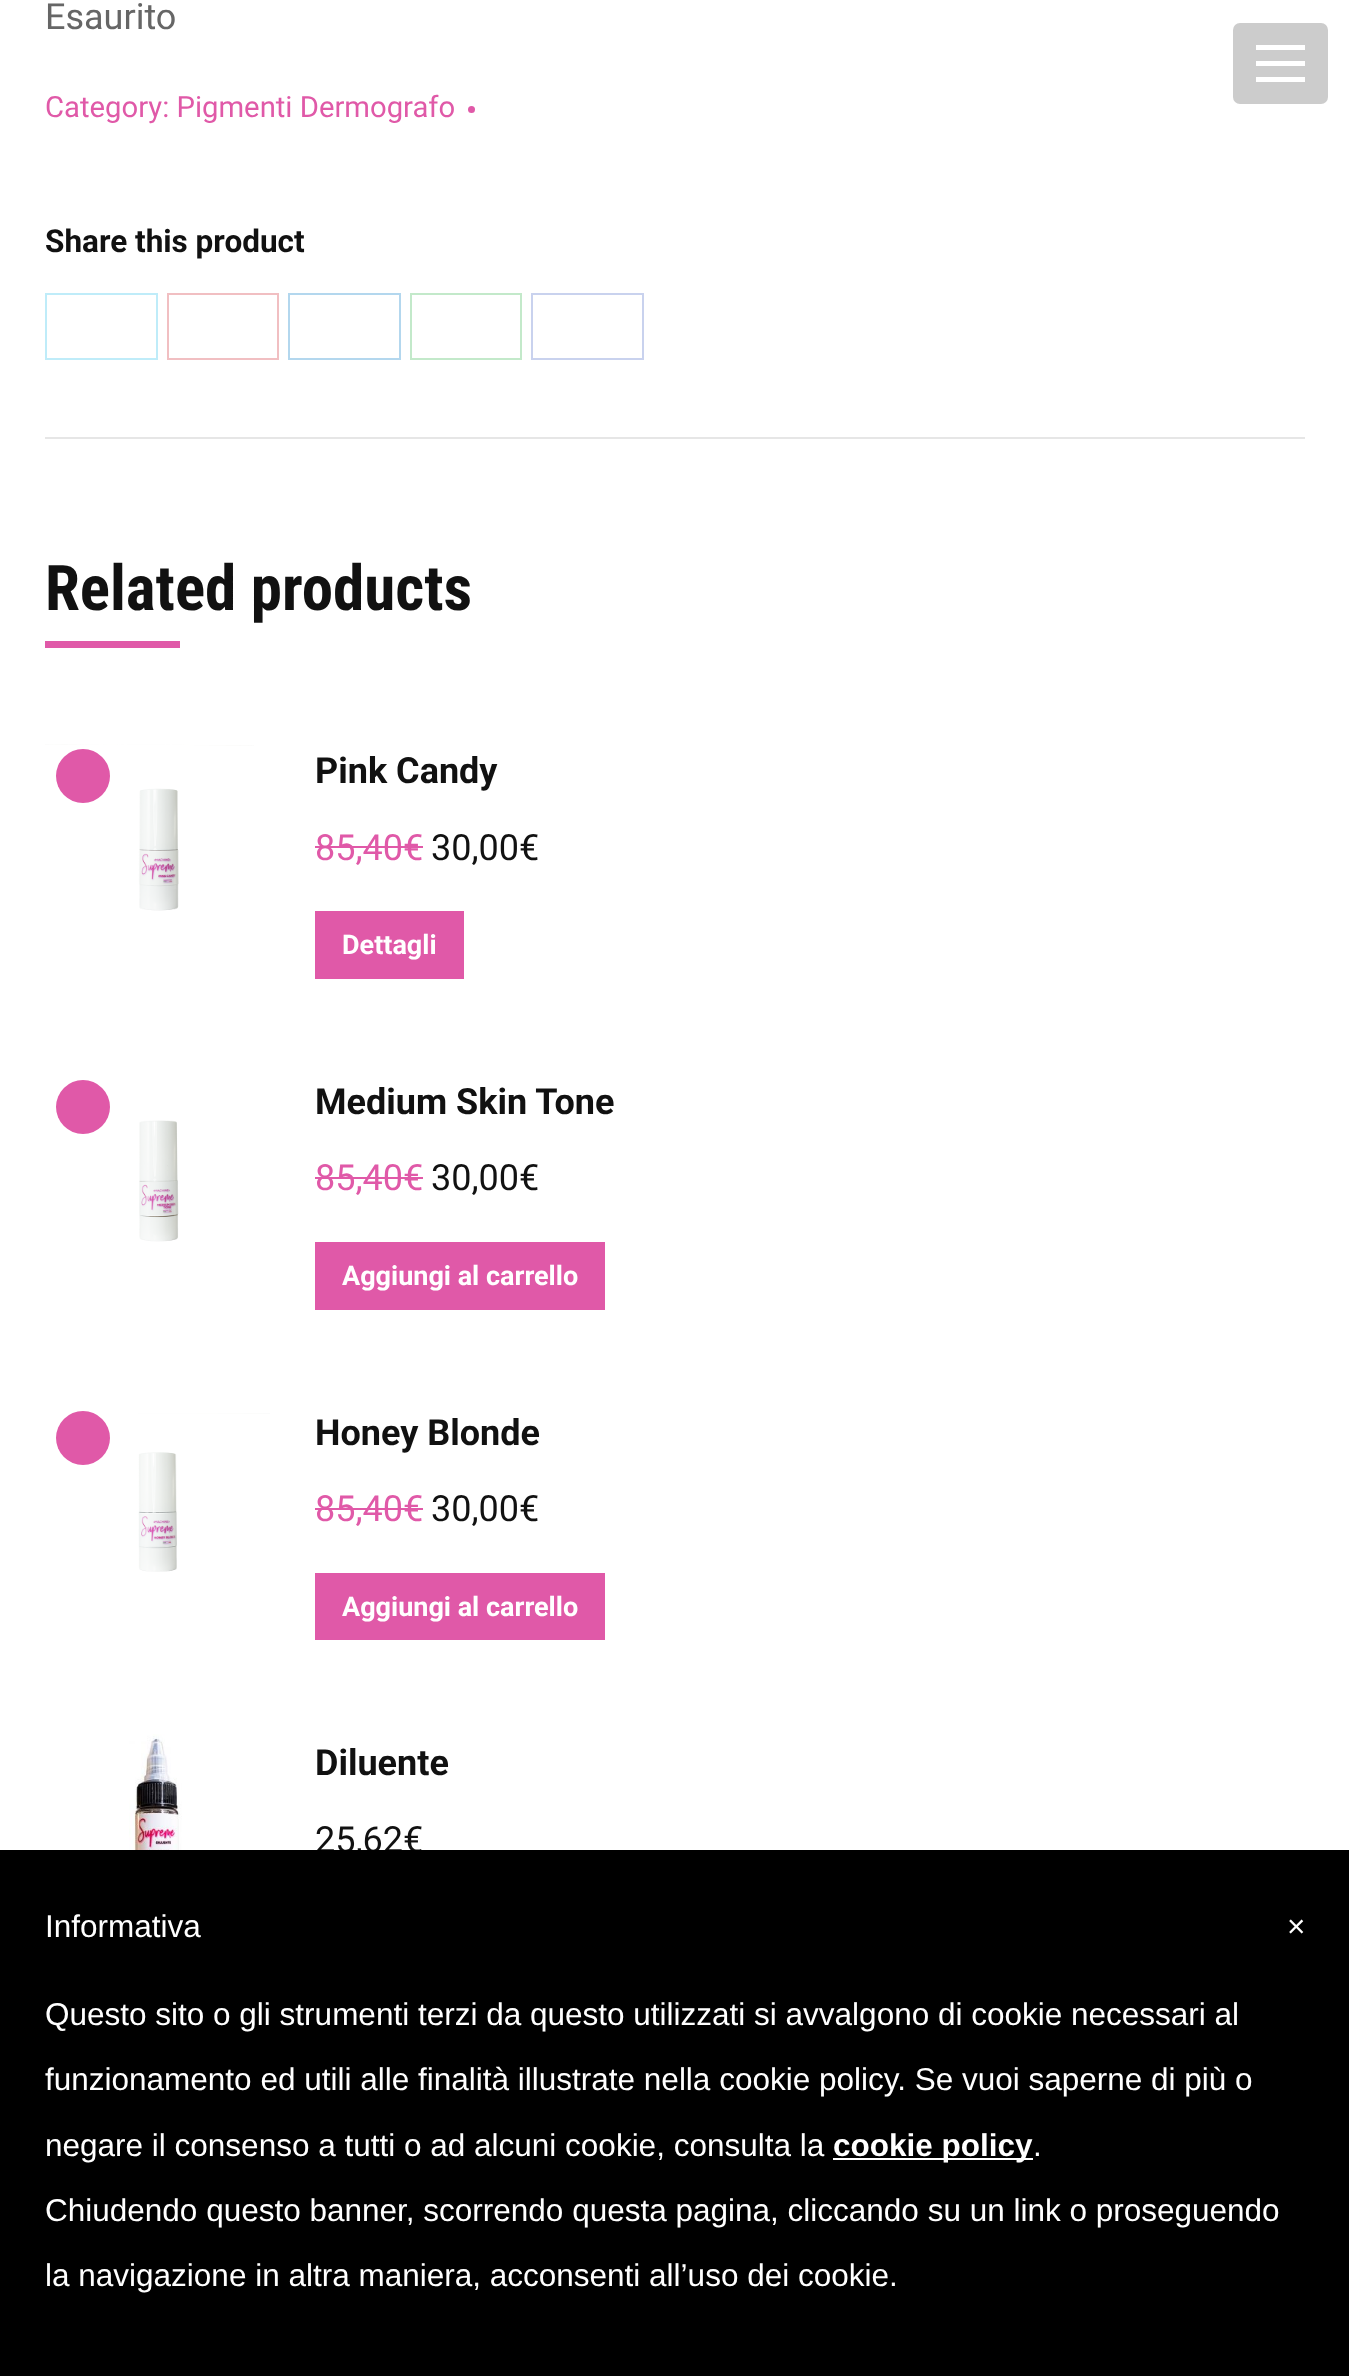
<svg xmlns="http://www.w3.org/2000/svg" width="1349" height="2376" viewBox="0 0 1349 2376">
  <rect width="100%" height="100%" fill="#fff"/>
  <circle cx="471.5" cy="109.5" r="3.5" fill="#e059a8"/>
  <path d="M46 294h111v65H46z" fill="none" stroke="#bfecf9" stroke-width="2"/>
  <path d="M168 294h110v65H168z" fill="none" stroke="#f1bfc2" stroke-width="2"/>
  <path d="M289 294h111v65H289z" fill="none" stroke="#b3d7ee" stroke-width="2"/>
  <path d="M411 294h110v65H411z" fill="none" stroke="#c3e9ca" stroke-width="2"/>
  <path d="M532 294h111v65H532z" fill="none" stroke="#c9d2ee" stroke-width="2"/>
  <path d="M45 437h1260v2H45z" fill="#e6e6e6"/>
  <path d="M45 641h135v7H45z" fill="#e059a8"/>
  <image x="45" y="744" width="209" height="167" href="img/1.png"/>
  <circle cx="83" cy="776" r="27" fill="#e059a8"/>
  <path d="M315 846h108v2H315z" fill="#e059a8"/>
  <path d="M315 911h149v68H315z" fill="#e059a8"/>
  <circle cx="83" cy="1107" r="27" fill="#e059a8"/>
  <image x="139" y="1120" width="40" height="122" href="img/2.png"/>
  <path d="M315 1177h108v2H315z" fill="#e059a8"/>
  <path d="M315 1242h290v68H315z" fill="#e059a8"/>
  <circle cx="83" cy="1438" r="27" fill="#e059a8"/>
  <image x="138" y="1413" width="132" height="159" href="img/3.png"/>
  <path d="M315 1508h108v2H315z" fill="#e059a8"/>
  <path d="M315 1573h290v67H315z" fill="#e059a8"/>
  <image x="129" y="1734" width="53" height="116" href="img/4.png"/>
  <rect x="1233" y="23" width="95" height="81" rx="7" fill="#ccc"/>
  <path d="M1256 45h49v5H1256z" fill="#fff"/>
  <path d="M1256 61h49v5H1256z" fill="#fff"/>
  <path d="M1256 77h49v5H1256z" fill="#fff"/>
  <text x="45" y="29" font-family="Roboto" font-size="36" fill="#666">Esaurito</text>
  <text x="45" y="117" font-family="Roboto" font-size="29.25" fill="#e059a8">Category: Pigmenti Dermografo</text>
  <text x="45" y="252" font-family="Roboto" font-size="31.5" font-weight="bold" fill="#111">Share this product</text>
  <text x="45" y="610" font-family="Roboto Condensed" font-size="63" font-weight="bold" fill="#111">Related products</text>
  <text x="315" y="783" font-family="Roboto" font-size="36" font-weight="bold" fill="#111">Pink Candy</text>
  <text x="315" y="860" font-family="Roboto" font-size="36" fill="#e059a8">85,40€</text>
  <text x="431" y="860" font-family="Roboto" font-size="36" fill="#111">30,00€</text>
  <text x="342" y="954" font-family="Roboto" font-size="27" font-weight="bold" fill="#fff">Dettagli</text>
  <text x="315" y="1114" font-family="Roboto" font-size="36" font-weight="bold" fill="#111">Medium Skin Tone</text>
  <text x="315" y="1190" font-family="Roboto" font-size="36" fill="#e059a8">85,40€</text>
  <text x="431" y="1190" font-family="Roboto" font-size="36" fill="#111">30,00€</text>
  <text x="342" y="1285" font-family="Roboto" font-size="27" font-weight="bold" fill="#fff">Aggiungi al carrello</text>
  <text x="315" y="1445" font-family="Roboto" font-size="36" font-weight="bold" fill="#111">Honey Blonde</text>
  <text x="315" y="1521" font-family="Roboto" font-size="36" fill="#e059a8">85,40€</text>
  <text x="431" y="1521" font-family="Roboto" font-size="36" fill="#111">30,00€</text>
  <text x="342" y="1616" font-family="Roboto" font-size="27" font-weight="bold" fill="#fff">Aggiungi al carrello</text>
  <text x="315" y="1775" font-family="Roboto" font-size="36" font-weight="bold" fill="#111">Diluente</text>
  <text x="315" y="1852" font-family="Roboto" font-size="36" fill="#111">25,62€</text>
  <path d="M0 1850h1349v526H0z" fill="#000"/>
  <g font-family="Liberation Sans" font-size="31.5" fill="#fff">
    <text x="45" y="1937">Informativa</text>
    <text x="45" y="2025">Questo sito o gli strumenti terzi da questo utilizzati si avvalgono di cookie necessari al</text>
    <text x="45" y="2090">funzionamento ed utili alle finalità illustrate nella cookie policy. Se vuoi saperne di più o</text>
    <text x="45" y="2156">negare il consenso a tutti o ad alcuni cookie, consulta la</text>
  </g>
  <path d="M833 2158h200v2H833z" fill="#fff"/>
  <text x="833" y="2156" font-family="Liberation Sans" font-size="31.5" font-weight="bold" fill="#fff">cookie policy</text>
  <g font-family="Liberation Sans" font-size="31.5" fill="#fff">
    <text x="1033" y="2156">.</text>
    <text x="45" y="2221">Chiudendo questo banner, scorrendo questa pagina, cliccando su un link o proseguendo</text>
    <text x="45" y="2286">la navigazione in altra maniera, acconsenti all’uso dei cookie.</text>
    <text x="1287" y="1937">×</text>
  </g>
</svg>
